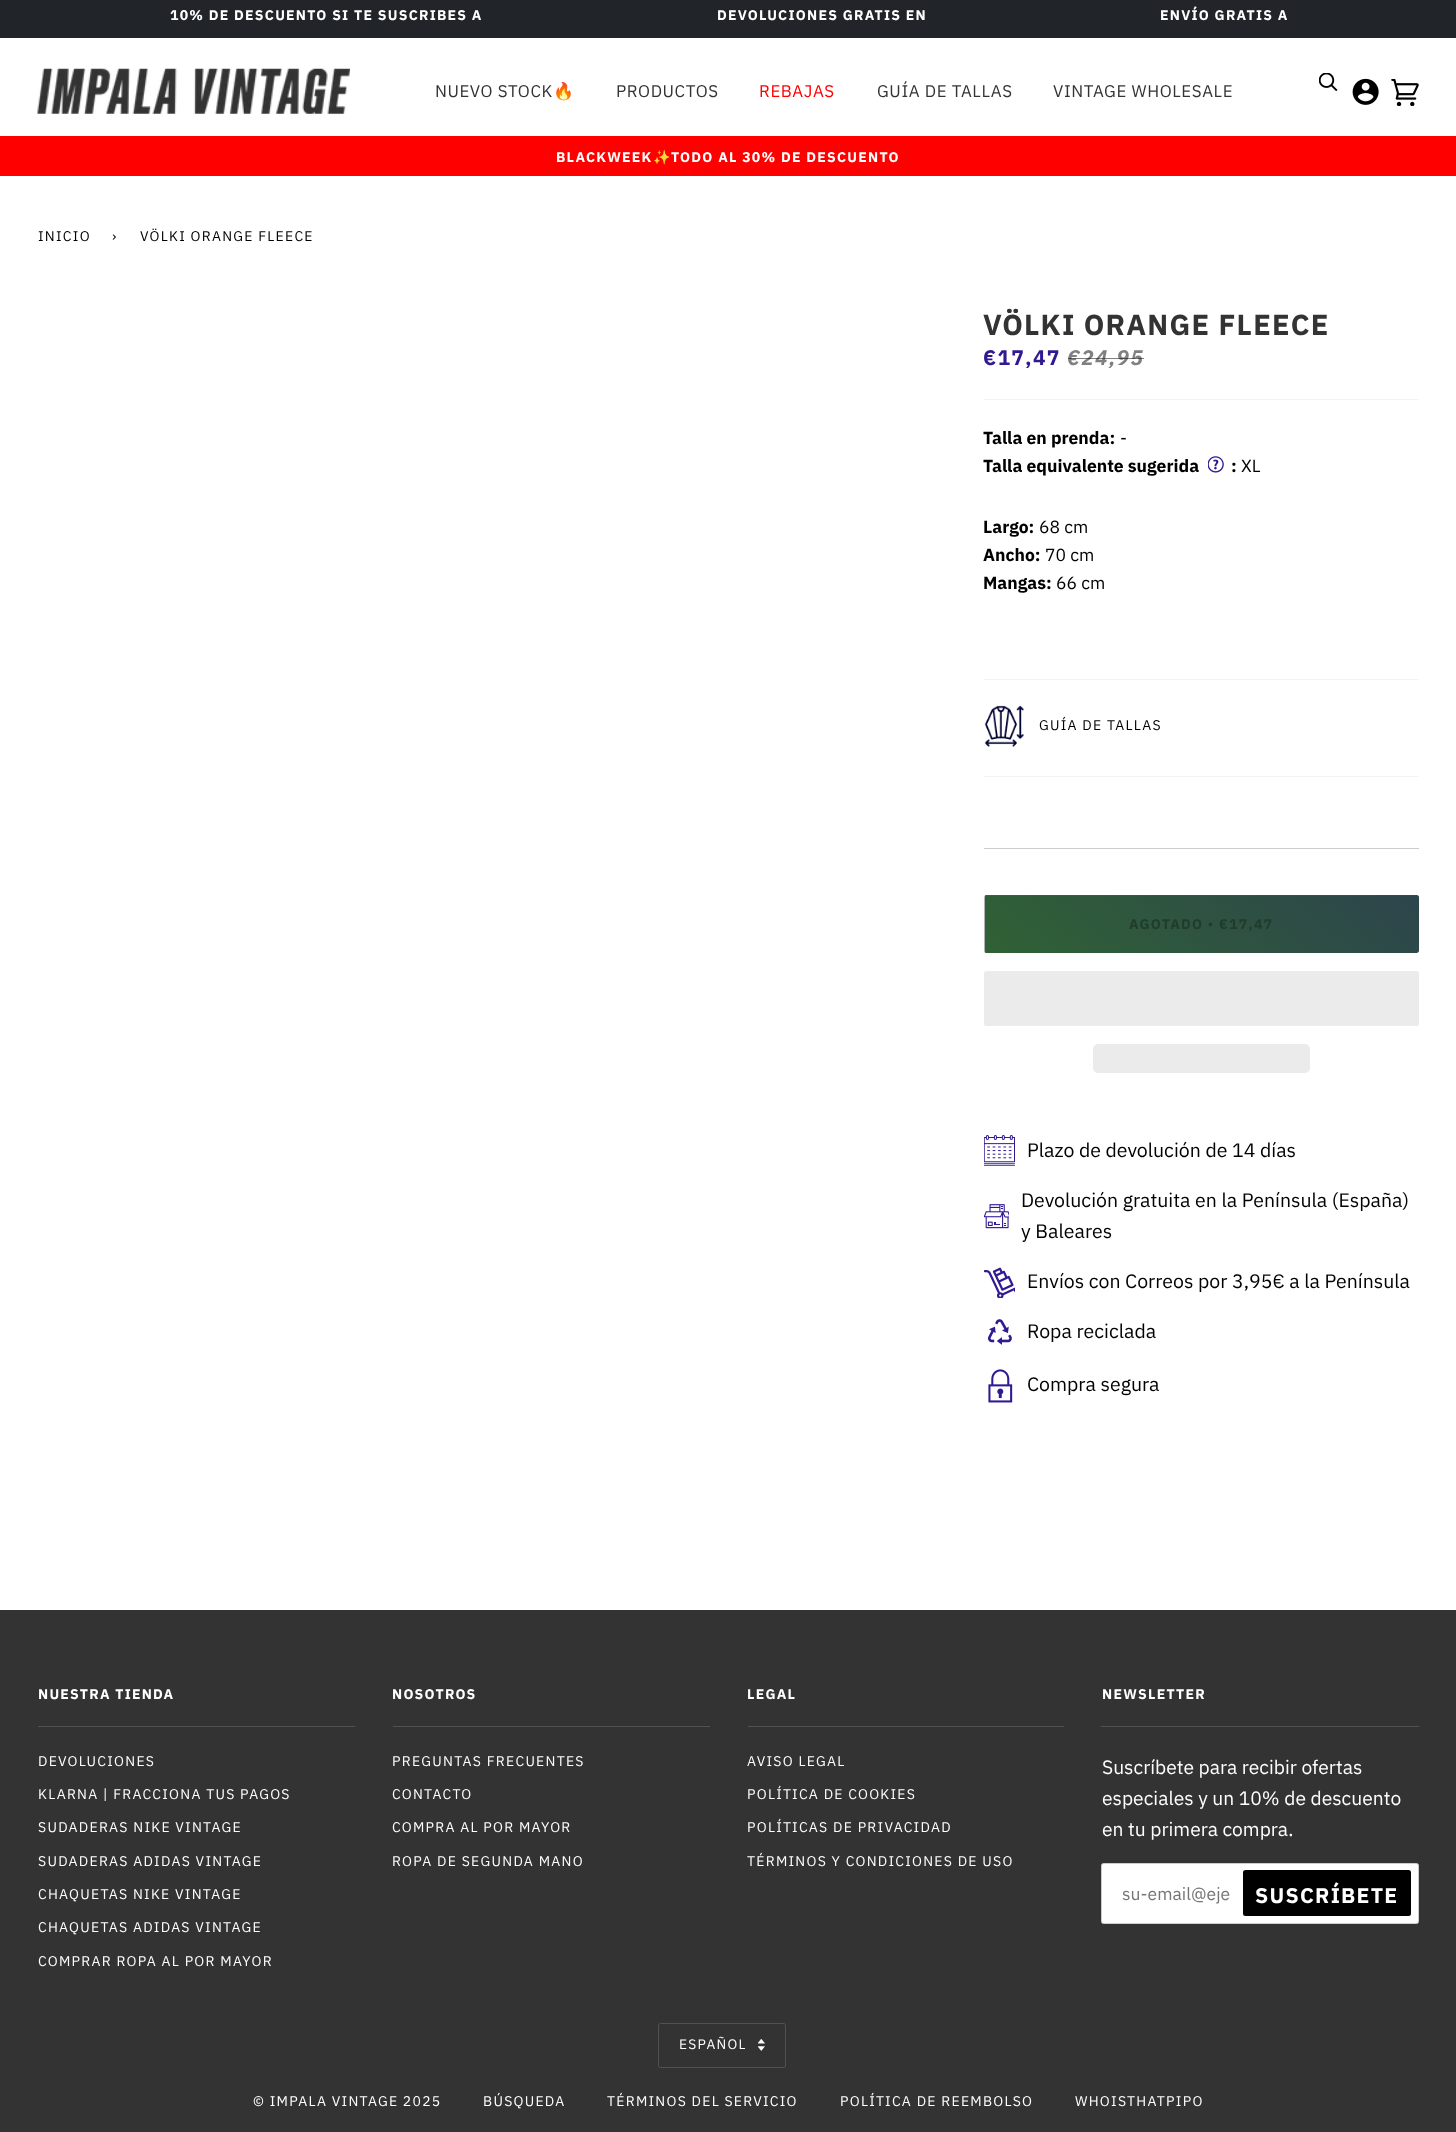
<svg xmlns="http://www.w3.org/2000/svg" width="1456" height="2132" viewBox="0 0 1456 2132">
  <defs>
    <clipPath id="clip1"><rect x="984" y="895" width="435" height="58" rx="2.5"/></clipPath>
    <linearGradient id="g1" gradientUnits="userSpaceOnUse" x1="1325" y1="1182" x2="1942" y2="446"><stop offset="0" stop-color="#31692f"/><stop offset="1" stop-color="#271374"/></linearGradient>
    <linearGradient id="g2" gradientUnits="userSpaceOnUse" x1="1325" y1="1347" x2="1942" y2="611"><stop offset="0" stop-color="#31692f"/><stop offset="1" stop-color="#271374"/></linearGradient>
  </defs>
  <rect width="100%" height="100%" fill="#fff"/>
  <path d="M0 0h1456v38H0z" fill="#212529"/>
  <image x="37" y="68" width="313" height="46" href="img/1.png"/>
  <image x="1352" y="78" width="27" height="27" href="img/2.png"/>
  <image x="1391" y="79" width="28" height="27" href="img/3.png"/>
  <image x="1319" y="73" width="19" height="18" href="img/4.png"/>
  <path d="M0 136h1456v40H0z" fill="#f00"/>
  <path d="M984 399h435v1H984z" fill="#f3f3f3"/>
  <image x="1208" y="456" width="16" height="17" href="img/5.png"/>
  <path d="M984 679h435v1H984z" fill="#f3f3f3"/>
  <image x="984" y="705" width="41" height="42" href="img/6.png"/>
  <path d="M984 776h435v1H984z" fill="#f3f3f3"/>
  <path d="M984 848h435v1H984z" fill="#ccc"/>
  <rect x="984" y="895" width="435" height="58" rx="2.5" fill="#b3b3b3"/>
  <g clip-path="url(#clip1)">
    <path d="M985 895h434v1H985z" fill="url(#g1)"/>
    <path d="M985 896H1419V950.5C1419 952 1418 953 1416.5 953H985Z" fill="url(#g2)"/>
  </g>
  <rect x="984" y="971" width="435" height="55" rx="2.5" fill="#ebebeb"/>
  <rect x="1093" y="1044" width="217" height="29" rx="5" fill="#ebebeb"/>
  <image x="984" y="1135" width="31" height="31" href="img/7.png"/>
  <image x="984" y="1204" width="25" height="25" href="img/8.png"/>
  <image x="984" y="1267" width="31" height="31" href="img/9.png"/>
  <image x="988" y="1319" width="24" height="26" href="img/10.png"/>
  <image x="988" y="1369" width="25" height="34" href="img/11.png"/>
  <path d="M0 1610h1456v522H0z" fill="#333"/>
  <path d="M38 1726h317v1H38z" fill="#525252"/>
  <path d="M393 1726h317v1H393z" fill="#525252"/>
  <path d="M748 1726h316v1H748z" fill="#525252"/>
  <path d="M1101 1726h318v1H1101z" fill="#525252"/>
  <rect x="1101.5" y="1863.5" width="317" height="60" rx="2" fill="#fff" stroke="#ccc"/>
  <rect x="1243" y="1870" width="168" height="46" rx="2.5" fill="#000"/>
  <rect x="658.5" y="2023.5" width="127" height="44" rx="2" fill="none" stroke="#525252"/>
  <image x="758" y="2039" width="7" height="12" href="img/12.png"/>
  <g font-family="IBM Plex Sans" font-size="14" font-weight="bold" letter-spacing="1.25" fill="#fff">
    <text x="170" y="20">10% DE DESCUENTO SI TE SUSCRIBES A</text>
    <text x="717" y="20">DEVOLUCIONES GRATIS EN</text>
    <text x="1160" y="20">ENVÍO GRATIS A</text>
  </g>
  <text x="435" y="97" font-family="IBM Plex Sans" font-size="16.9" letter-spacing="0.6" fill="#333">NUEVO STOCK</text>
  <text x="553" y="97" font-family="Noto Color Emoji" font-size="16.9" letter-spacing="0.6" fill="#333">🔥</text>
  <text x="616" y="97" font-family="IBM Plex Sans" font-size="16.9" letter-spacing="0.6" fill="#333">PRODUCTOS</text>
  <text x="759" y="97" font-family="IBM Plex Sans" font-size="16.9" letter-spacing="0.6" fill="#f00">REBAJAS</text>
  <g font-family="IBM Plex Sans" font-size="16.9" letter-spacing="0.6" fill="#333">
    <text x="877" y="97">GUÍA DE TALLAS</text>
    <text x="1053" y="97">VINTAGE WHOLESALE</text>
  </g>
  <text x="556" y="162" font-family="IBM Plex Sans" font-size="14" font-weight="bold" letter-spacing="1.25" fill="#fff">BLACKWEEK</text>
  <text x="653" y="162" font-family="Noto Color Emoji" font-size="14" font-weight="bold" letter-spacing="1.25" fill="#fff">✨</text>
  <text x="671" y="162" font-family="IBM Plex Sans" font-size="14" font-weight="bold" letter-spacing="1.25" fill="#fff">TODO AL 30% DE DESCUENTO</text>
  <g font-family="IBM Plex Sans" font-size="14" letter-spacing="1.25" fill="#000">
    <text x="38" y="241">INICIO</text>
    <text x="112" y="241">›</text>
    <text x="140" y="241">VÖLKI ORANGE FLEECE</text>
  </g>
  <text x="983" y="335" font-family="IBM Plex Sans" font-size="28.9" font-weight="bold" letter-spacing="1.25" fill="#333">VÖLKI ORANGE FLEECE</text>
  <text x="983" y="365" font-family="IBM Plex Sans" font-size="21" font-weight="bold" letter-spacing="1.25" fill="#311991">€17,47</text>
  <text x="1067" y="365" font-family="IBM Plex Sans" font-size="21" font-weight="bold" font-style="italic" letter-spacing="1.25" fill="#808080">€24,95</text>
  <path d="M1068 358h76v1H1068z" fill="#00000080"/>
  <text x="983" y="444" font-family="IBM Plex Sans" font-size="17.5" font-weight="bold" fill="#000">Talla en prenda:</text>
  <text x="1120" y="444" font-family="IBM Plex Sans" font-size="17.5" fill="#000">-</text>
  <g font-family="IBM Plex Sans" font-size="17.5" font-weight="bold" fill="#000">
    <text x="983" y="472">Talla equivalente sugerida</text>
    <text x="1231" y="472">:</text>
  </g>
  <text x="1241" y="472" font-family="IBM Plex Sans" font-size="17.5" fill="#000">XL</text>
  <text x="983" y="533" font-family="IBM Plex Sans" font-size="17.5" font-weight="bold" fill="#000">Largo:</text>
  <text x="1039" y="533" font-family="IBM Plex Sans" font-size="17.5" fill="#000">68 cm</text>
  <text x="983" y="561" font-family="IBM Plex Sans" font-size="17.5" font-weight="bold" fill="#000">Ancho:</text>
  <text x="1045" y="561" font-family="IBM Plex Sans" font-size="17.5" fill="#000">70 cm</text>
  <text x="983" y="589" font-family="IBM Plex Sans" font-size="17.5" font-weight="bold" fill="#000">Mangas:</text>
  <text x="1056" y="589" font-family="IBM Plex Sans" font-size="17.5" fill="#000">66 cm</text>
  <text x="1039" y="730" font-family="IBM Plex Sans" font-size="14" letter-spacing="1.25" fill="#000">GUÍA DE TALLAS</text>
  <text x="1129" y="929" font-family="IBM Plex Sans" font-size="14" font-weight="bold" letter-spacing="1.25" fill="#213c2c">AGOTADO</text>
  <text x="1208" y="929" font-family="Liberation Serif" font-size="14" font-weight="bold" letter-spacing="1.25" fill="#213c2c">•</text>
  <text x="1219" y="929" font-family="IBM Plex Sans" font-size="14" font-weight="bold" letter-spacing="1.25" fill="#213c2c">€17,47</text>
  <g font-family="IBM Plex Sans" font-size="19.5" fill="#000">
    <text x="1027" y="1157">Plazo de devolución de 14 días</text>
    <text x="1021" y="1207">Devolución gratuita en la Península (España)</text>
    <text x="1021" y="1238">y Baleares</text>
    <text x="1027" y="1288">Envíos con Correos por 3,95€ a la Península</text>
    <text x="1027" y="1338">Ropa reciclada</text>
    <text x="1027" y="1391">Compra segura</text>
  </g>
  <text x="38" y="1699" font-family="IBM Plex Sans" font-size="14" font-weight="bold" letter-spacing="1.25" fill="#fff">NUESTRA TIENDA</text>
  <g font-family="IBM Plex Sans" font-size="14" letter-spacing="1.25" fill="#fff">
    <text x="38" y="1766">DEVOLUCIONES</text>
    <text x="38" y="1799">KLARNA | FRACCIONA TUS PAGOS</text>
    <text x="38" y="1832">SUDADERAS NIKE VINTAGE</text>
    <text x="38" y="1866">SUDADERAS ADIDAS VINTAGE</text>
    <text x="38" y="1899">CHAQUETAS NIKE VINTAGE</text>
    <text x="38" y="1932">CHAQUETAS ADIDAS VINTAGE</text>
    <text x="38" y="1966">COMPRAR ROPA AL POR MAYOR</text>
  </g>
  <text x="392" y="1699" font-family="IBM Plex Sans" font-size="14" font-weight="bold" letter-spacing="1.25" fill="#fff">NOSOTROS</text>
  <g font-family="IBM Plex Sans" font-size="14" letter-spacing="1.25" fill="#fff">
    <text x="392" y="1766">PREGUNTAS FRECUENTES</text>
    <text x="392" y="1799">CONTACTO</text>
    <text x="392" y="1832">COMPRA AL POR MAYOR</text>
    <text x="392" y="1866">ROPA DE SEGUNDA MANO</text>
  </g>
  <text x="747" y="1699" font-family="IBM Plex Sans" font-size="14" font-weight="bold" letter-spacing="1.25" fill="#fff">LEGAL</text>
  <g font-family="IBM Plex Sans" font-size="14" letter-spacing="1.25" fill="#fff">
    <text x="747" y="1766">AVISO LEGAL</text>
    <text x="747" y="1799">POLÍTICA DE COOKIES</text>
    <text x="747" y="1832">POLÍTICAS DE PRIVACIDAD</text>
    <text x="747" y="1866">TÉRMINOS Y CONDICIONES DE USO</text>
  </g>
  <text x="1102" y="1699" font-family="IBM Plex Sans" font-size="14" font-weight="bold" letter-spacing="1.25" fill="#fff">NEWSLETTER</text>
  <g font-family="IBM Plex Sans" font-size="19.25" fill="#fff">
    <text x="1102" y="1774">Suscríbete para recibir ofertas</text>
    <text x="1102" y="1805">especiales y un 10% de descuento</text>
    <text x="1102" y="1836">en tu primera compra.</text>
  </g>
  <text x="1122" y="1900" font-family="IBM Plex Sans" font-size="17.5" fill="#757575">su-email@eje</text>
  <text x="1255" y="1903" font-family="IBM Plex Sans" font-size="21.25" font-weight="bold" letter-spacing="1.25" fill="#fff">SUSCRÍBETE</text>
  <text x="679" y="2049" font-family="IBM Plex Sans" font-size="13.75" letter-spacing="1.25" fill="#fff">ESPAÑOL</text>
  <g font-family="IBM Plex Sans" font-size="14" letter-spacing="1.25" fill="#fff">
    <text x="253" y="2106">© IMPALA VINTAGE 2025</text>
    <text x="483" y="2106">BÚSQUEDA</text>
    <text x="607" y="2106">TÉRMINOS DEL SERVICIO</text>
    <text x="840" y="2106">POLÍTICA DE REEMBOLSO</text>
    <text x="1075" y="2106">WHOISTHATPIPO</text>
  </g>
</svg>
